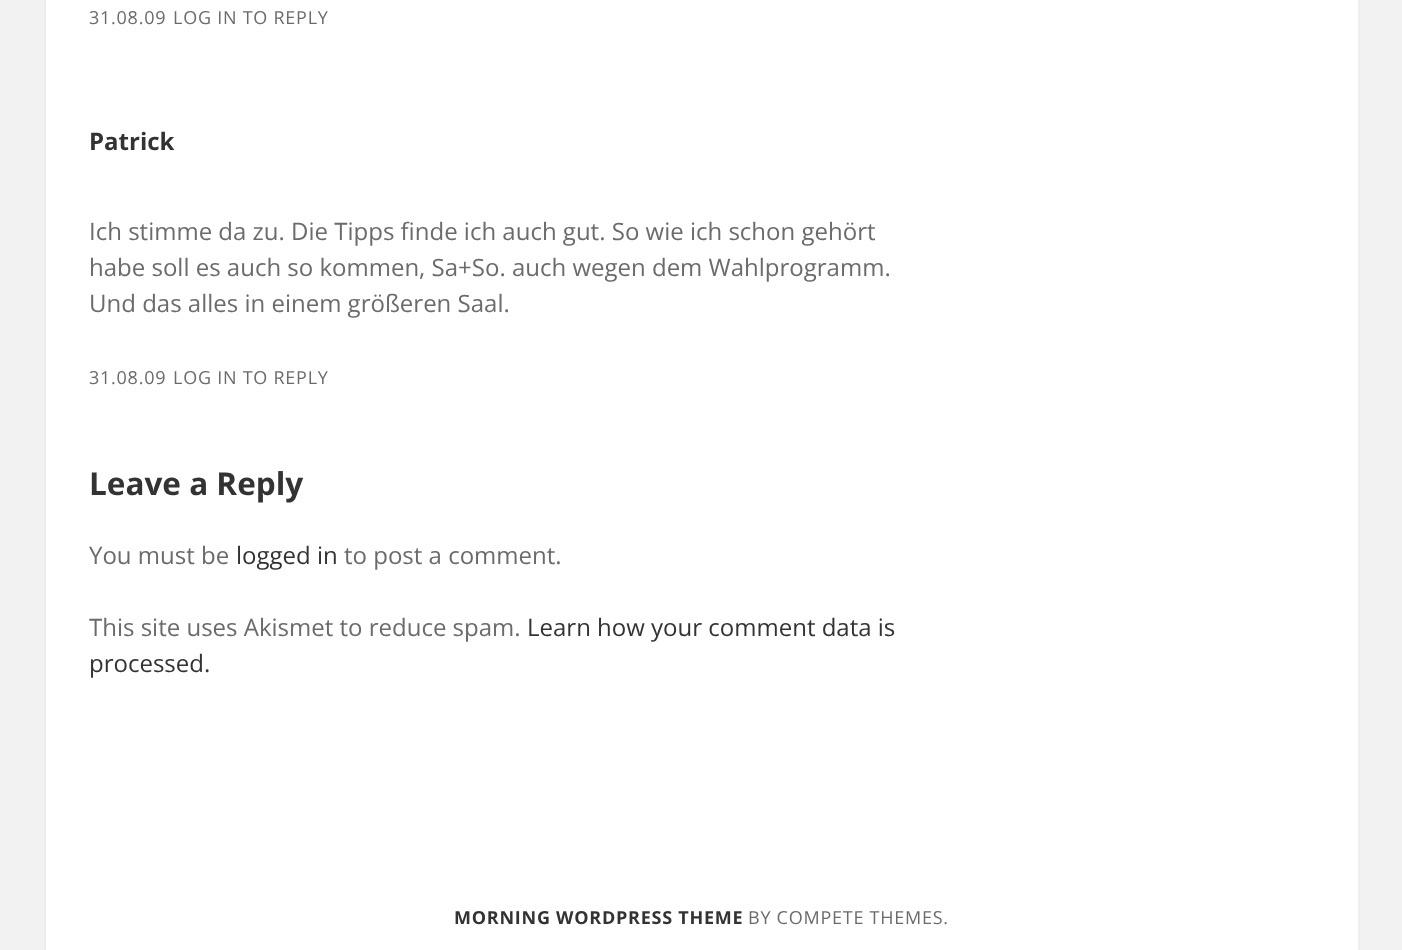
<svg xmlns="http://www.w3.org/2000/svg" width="1402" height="950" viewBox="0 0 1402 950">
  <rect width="100%" height="100%" fill="#f2f2f2"/>
  <path d="M46 0h1312v950H46z" fill="#fff"/>
  <path d="M1358 0h2v950H1358z" fill="#ededed"/>
  <path d="M44 0h2v950H44z" fill="#ededed"/>
  <g font-family="Open Sans" font-size="18" letter-spacing="0.75" fill="#6b6b6b">
    <text x="89" y="24">31.08.09</text>
    <text x="173" y="24">LOG IN TO REPLY</text>
  </g>
  <text x="89" y="150" font-family="Open Sans" font-size="24" font-weight="bold" fill="#333">Patrick</text>
  <g font-family="Open Sans" font-size="24" fill="#6b6b6b">
    <text x="89" y="240">Ich stimme da zu. Die Tipps finde ich auch gut. So wie ich schon gehört</text>
    <text x="89" y="276">habe soll es auch so kommen, Sa+So. auch wegen dem Wahlprogramm.</text>
    <text x="89" y="312">Und das alles in einem größeren Saal.</text>
  </g>
  <g font-family="Open Sans" font-size="18" letter-spacing="0.75" fill="#6b6b6b">
    <text x="89" y="384">31.08.09</text>
    <text x="173" y="384">LOG IN TO REPLY</text>
  </g>
  <text x="89" y="495" font-family="Open Sans" font-size="31.5" font-weight="bold" fill="#333">Leave a Reply</text>
  <text x="89" y="564" font-family="Open Sans" font-size="24" fill="#6b6b6b">You must be</text>
  <text x="236" y="564" font-family="Open Sans" font-size="24" fill="#333">logged in</text>
  <g font-family="Open Sans" font-size="24" fill="#6b6b6b">
    <text x="344" y="564">to post a comment.</text>
    <text x="89" y="636">This site uses Akismet to reduce spam.</text>
  </g>
  <g font-family="Open Sans" font-size="24" fill="#333">
    <text x="527" y="636">Learn how your comment data is</text>
    <text x="89" y="672">processed.</text>
  </g>
  <text x="454" y="924" font-family="Open Sans" font-size="18" font-weight="bold" letter-spacing="0.75" fill="#333">MORNING WORDPRESS THEME</text>
  <text x="748" y="924" font-family="Open Sans" font-size="18" letter-spacing="0.75" fill="#6b6b6b">BY COMPETE THEMES.</text>
</svg>
